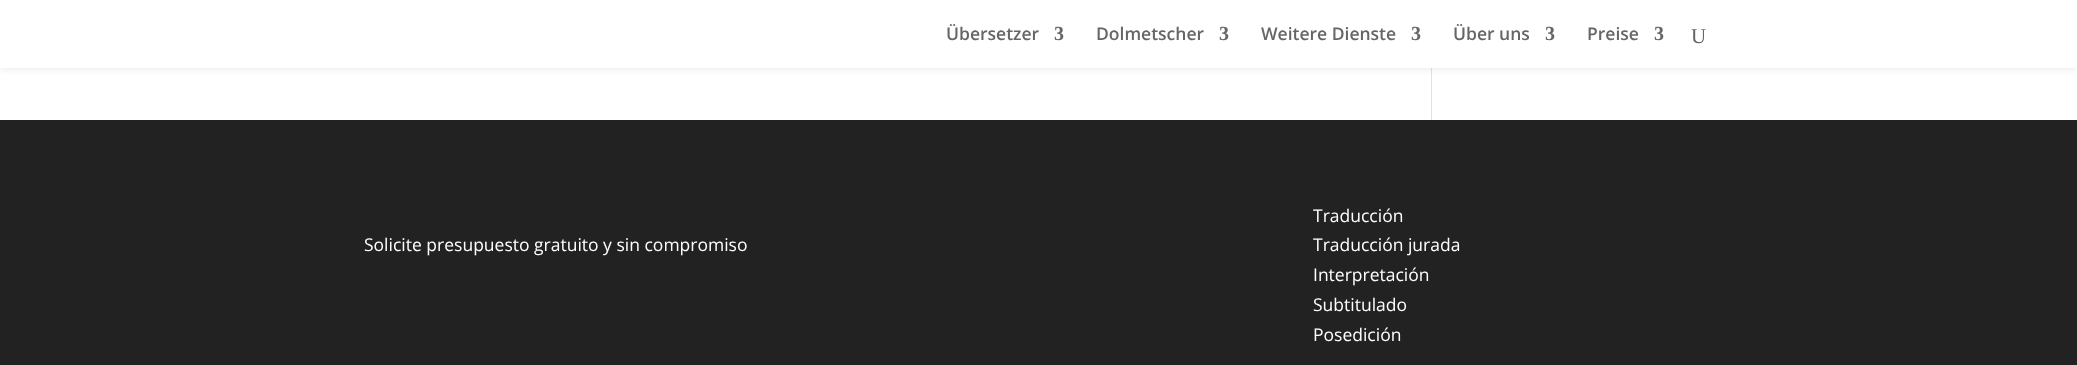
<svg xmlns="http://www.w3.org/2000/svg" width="2077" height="365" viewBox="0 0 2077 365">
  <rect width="100%" height="100%" fill="#fff"/>
  <path d="M1431 68h1v52H1431z" fill="#e2e2e2"/>
  <path d="M0 0h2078v68H0z" fill="#0000001a" filter="blur(4.5px)"/>
  <path d="M0 0h2077v68H0z" fill="#fff"/>
  <path d="M0 120h2077v245H0z" fill="#222"/>
  <text x="946" y="40" font-family="Open Sans" font-size="17.5" font-weight="600" fill="#666">Übersetzer</text>
  <text x="1054" y="40" font-family="Liberation Serif" font-size="20" font-weight="bold" fill="#666">3</text>
  <text x="1096" y="40" font-family="Open Sans" font-size="17.5" font-weight="600" fill="#666">Dolmetscher</text>
  <text x="1219" y="40" font-family="Liberation Serif" font-size="20" font-weight="bold" fill="#666">3</text>
  <text x="1261" y="40" font-family="Open Sans" font-size="17.5" font-weight="600" fill="#666">Weitere Dienste</text>
  <text x="1411" y="40" font-family="Liberation Serif" font-size="20" font-weight="bold" fill="#666">3</text>
  <text x="1453" y="40" font-family="Open Sans" font-size="17.5" font-weight="600" fill="#666">Über uns</text>
  <text x="1545" y="40" font-family="Liberation Serif" font-size="20" font-weight="bold" fill="#666">3</text>
  <text x="1587" y="40" font-family="Open Sans" font-size="17.5" font-weight="600" fill="#666">Preise</text>
  <text x="1654" y="40" font-family="Liberation Serif" font-size="20" font-weight="bold" fill="#666">3</text>
  <text x="1691" y="43" font-family="Liberation Serif" font-size="21" fill="#666">U</text>
  <g font-family="Open Sans" font-size="17.5" fill="#fff">
    <text x="364" y="251">Solicite presupuesto gratuito y sin compromiso</text>
    <text x="1313" y="222">Traducción</text>
    <text x="1313" y="251">Traducción jurada</text>
    <text x="1313" y="281">Interpretación</text>
    <text x="1313" y="311">Subtitulado</text>
    <text x="1313" y="341">Posedición</text>
  </g>
</svg>
